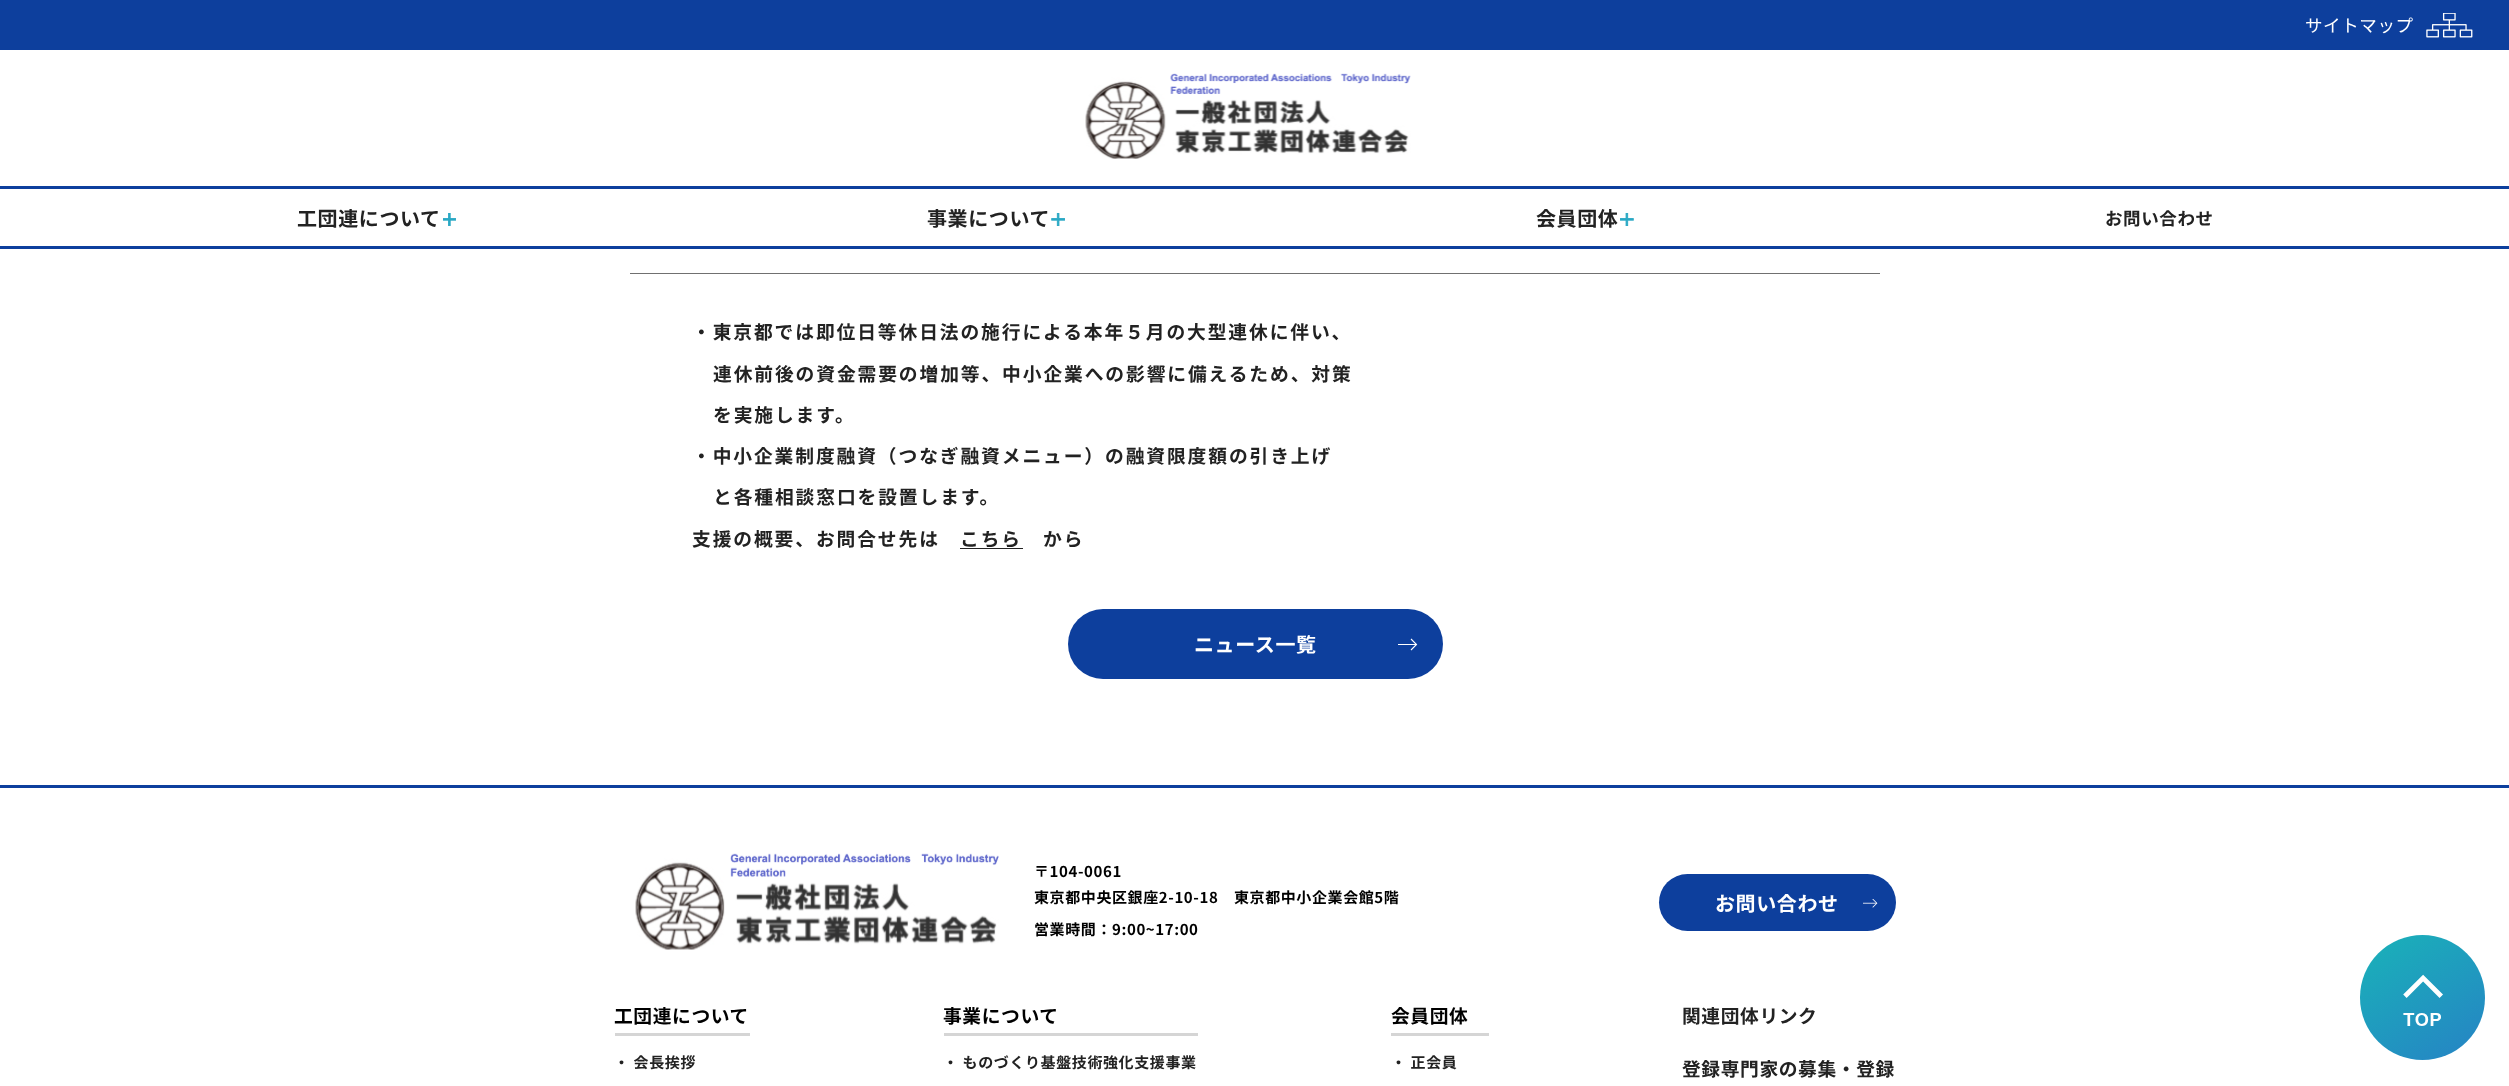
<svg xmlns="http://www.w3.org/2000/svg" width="2509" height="1086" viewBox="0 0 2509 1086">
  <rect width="100%" height="100%" fill="#fff"/>
  <path d="M0 0h2509v50H0z" fill="#0d3f9d"/>
  <image x="2426" y="13" width="47" height="25" href="img/1.png"/>
  <image x="1085" y="73" width="326" height="86" href="img/2.png"/>
  <path d="M0 186h2509v3H0z" fill="#0d3f9d"/>
  <path d="M0 246h2509v3H0z" fill="#0d3f9d"/>
  <image x="443" y="213" width="13" height="13" href="img/3.png"/>
  <image x="1051" y="213" width="14" height="13" href="img/4.png"/>
  <image x="1620" y="213" width="14" height="13" href="img/5.png"/>
  <path d="M630 273h1250v1H630z" fill="#707070"/>
  <path d="M960 548h63v1H960z" fill="#222"/>
  <rect x="1068" y="609" width="375" height="70" rx="35" fill="#0d3f9d"/>
  <path d="M1411 639L1416.5 644.5L1411 650" fill="none" stroke="#fff" stroke-width="1.1"/>
  <path d="M1398 644h19v1H1398z" fill="#fff"/>
  <path d="M0 785h2509v3H0z" fill="#0d3f9d"/>
  <image x="635" y="853" width="364" height="97" href="img/6.png"/>
  <rect x="1659" y="874" width="237" height="57" rx="28.5" fill="#0d3f9d"/>
  <image x="1863" y="899" width="15" height="9" href="img/7.png"/>
  <path d="M615 1033h135v3H615z" fill="#d5d5d5"/>
  <path d="M944 1033h254v3H944z" fill="#d5d5d5"/>
  <path d="M1391 1033h98v3H1391z" fill="#d5d5d5"/>
  <image x="2360" y="935" width="125" height="125" href="img/8.png"/>
  <text x="2305" y="32" font-family="Noto Sans JP" font-size="17.5" letter-spacing="0.6" fill="#fff">サイトマップ</text>
  <g font-family="Noto Sans JP" font-size="20" font-weight="bold" letter-spacing="0.6" fill="#222">
    <text x="297" y="226">工団連について</text>
    <text x="927" y="226">事業について</text>
    <text x="1536" y="226">会員団体</text>
  </g>
  <text x="2105" y="225" font-family="Noto Sans JP" font-size="17.5" font-weight="bold" letter-spacing="0.6" fill="#222">お問い合わせ</text>
  <g font-family="Noto Sans JP" font-size="18.75" font-weight="bold" letter-spacing="1.9" fill="#222">
    <text x="692" y="339">・東京都では即位日等休日法の施行による本年５月の大型連休に伴い、</text>
    <text x="713" y="381">連休前後の資金需要の増加等、中小企業への影響に備えるため、対策</text>
    <text x="713" y="422">を実施します。</text>
    <text x="692" y="463">・中小企業制度融資（つなぎ融資メニュー）の融資限度額の引き上げ</text>
    <text x="713" y="504">と各種相談窓口を設置します。</text>
    <text x="692" y="546">支援の概要、お問合せ先は</text>
    <text x="960" y="546">こちら</text>
    <text x="1043" y="546">から</text>
  </g>
  <text x="1194" y="652" font-family="Noto Sans JP" font-size="20" font-weight="bold" letter-spacing="0.6" fill="#fff">ニュース一覧</text>
  <g font-family="Noto Sans JP" font-size="15" font-weight="bold" letter-spacing="0.6" fill="#000">
    <text x="1034" y="877">〒104-0061</text>
    <text x="1034" y="903">東京都中央区銀座2-10-18　東京都中小企業会館5階</text>
    <text x="1034" y="935">営業時間：9:00~17:00</text>
  </g>
  <text x="1715" y="911" font-family="Noto Sans JP" font-size="20" font-weight="bold" letter-spacing="0.6" fill="#fff">お問い合わせ</text>
  <text x="614" y="1023" font-family="Noto Sans JP" font-size="18.75" font-weight="bold" letter-spacing="0.6" fill="#000">工団連について</text>
  <text x="614" y="1068" font-family="Noto Sans JP" font-size="15" font-weight="bold" letter-spacing="0.6" fill="#222">・ 会長挨拶</text>
  <text x="943" y="1023" font-family="Noto Sans JP" font-size="18.75" font-weight="bold" letter-spacing="0.6" fill="#000">事業について</text>
  <text x="943" y="1068" font-family="Noto Sans JP" font-size="15" font-weight="bold" letter-spacing="0.6" fill="#222">・ ものづくり基盤技術強化支援事業</text>
  <text x="1391" y="1023" font-family="Noto Sans JP" font-size="18.75" font-weight="bold" letter-spacing="0.6" fill="#000">会員団体</text>
  <text x="1391" y="1068" font-family="Noto Sans JP" font-size="15" font-weight="bold" letter-spacing="0.6" fill="#222">・ 正会員</text>
  <g font-family="Noto Sans JP" font-size="18.75" font-weight="bold" letter-spacing="0.6" fill="#222">
    <text x="1682" y="1023">関連団体リンク</text>
    <text x="1682" y="1076">登録専門家の募集・登録</text>
  </g>
</svg>
